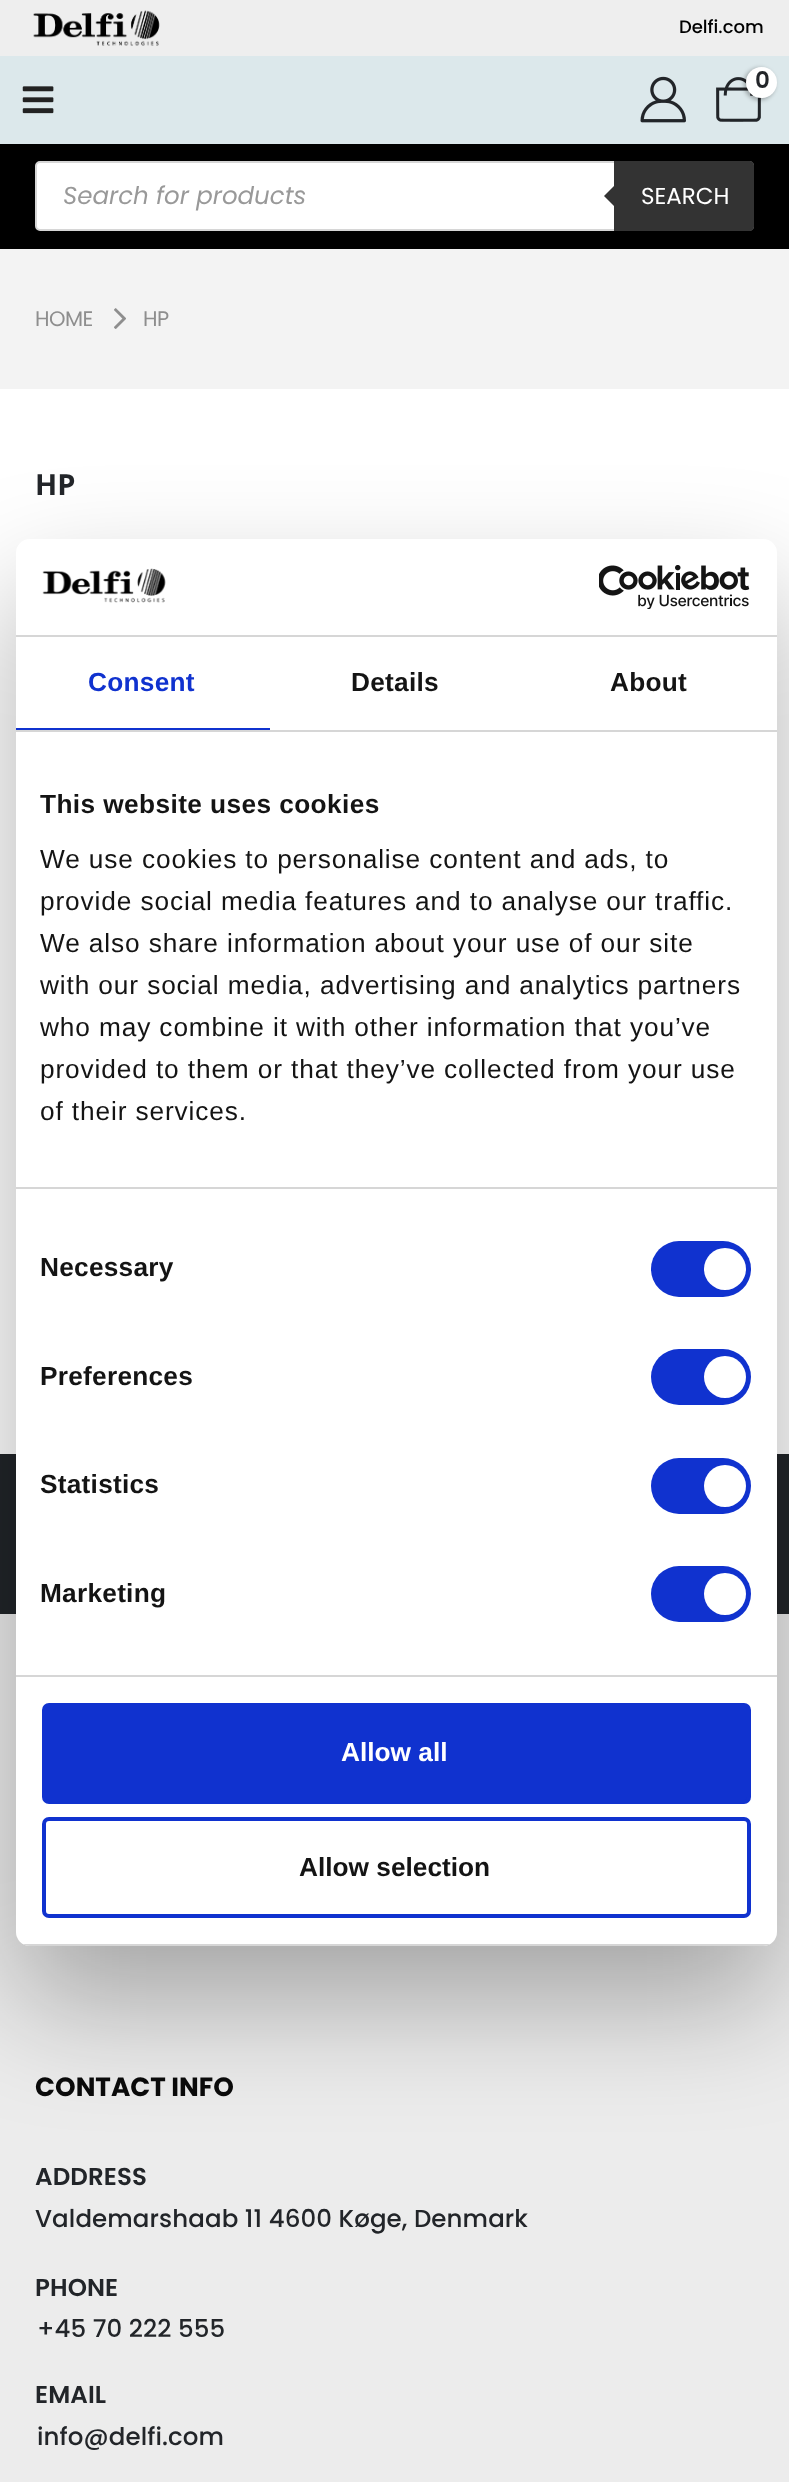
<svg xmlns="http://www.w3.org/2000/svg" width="789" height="2482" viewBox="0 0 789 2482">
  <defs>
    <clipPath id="clip1"><rect x="16" y="539" width="761" height="1407" rx="14"/></clipPath>
  </defs>
  <rect width="100%" height="100%" fill="#fff"/>
  <path d="M0 0h789v56H0z" fill="#eee"/>
  <image x="33" y="10" width="127" height="36" href="img/1.png"/>
  <path d="M0 56h789v88H0z" fill="#dce8eb"/>
  <image x="22" y="86" width="32" height="28" href="img/2.png"/>
  <image x="640" y="76" width="46" height="47" href="img/3.png"/>
  <image x="716" y="77" width="45" height="45" href="img/4.png"/>
  <rect x="744" y="68" width="31" height="32" rx="15.5" fill="#0000004d" filter="blur(2px)"/>
  <circle cx="761.5" cy="82.5" r="15.5" fill="#fff"/>
  <path d="M0 144h789v105H0z" fill="#000"/>
  <rect x="36" y="162" width="717" height="68" rx="4" fill="#fff" stroke="#d6d6d6" stroke-width="2"/>
  <path d="M614 161H750C752 161 754 163 754 165V227C754 229 752 231 750 231H614Z" fill="#333"/>
  <path d="M618 182V210L604 196Z" fill="#333"/>
  <path d="M0 249h789v140H0z" fill="#f3f3f3"/>
  <image x="114" y="308" width="12" height="21" href="img/5.png"/>
  <path d="M0 1454h789v160H0z" fill="#212529"/>
  <path d="M0 1614h789v868H0z" fill="#ececec"/>
  <rect x="16" y="595" width="761" height="1407" rx="14" fill="#0000004d" filter="blur(59.5px)"/>
  <rect x="16" y="539" width="761" height="1407" rx="14" fill="#fff"/>
  <path d="M16 635h761v2H16z" fill="#d6d6d6"/>
  <image x="42" y="568" width="124" height="35" href="img/6.png"/>
  <image x="599" y="565" width="151" height="44" href="img/7.png"/>
  <path d="M16 730h761v2H16z" fill="#d6d6d6"/>
  <path d="M16 728h254v2H16z" fill="#1032cf"/>
  <path d="M16 1187h761v2H16z" fill="#d6d6d6"/>
  <path d="M16 1675h761v2H16z" fill="#d6d6d6"/>
  <rect x="651" y="1241" width="100" height="56" rx="28" fill="#1032cf"/>
  <circle cx="725" cy="1269" r="21" fill="#fff"/>
  <rect x="651" y="1349" width="100" height="56" rx="28" fill="#1032cf"/>
  <circle cx="725" cy="1377" r="21" fill="#fff"/>
  <rect x="651" y="1458" width="100" height="56" rx="28" fill="#1032cf"/>
  <circle cx="725" cy="1486" r="21" fill="#fff"/>
  <rect x="651" y="1566" width="100" height="56" rx="28" fill="#1032cf"/>
  <circle cx="725" cy="1594" r="21" fill="#fff"/>
  <g clip-path="url(#clip1)">
    <path d="M16 1944h761v2H16z" fill="#d6d6d6"/>
  </g>
  <rect x="44" y="1705" width="705" height="97" rx="5" fill="#1032cf" stroke="#1032cf" stroke-width="4"/>
  <rect x="44" y="1819" width="705" height="97" rx="5" fill="none" stroke="#1032cf" stroke-width="4"/>
  <text x="679" y="33" font-family="Poppins" font-size="18" font-weight="500" fill="#000">Delfi.com</text>
  <text x="755" y="88" font-family="Poppins" font-size="23" font-weight="600" fill="#222529">0</text>
  <text x="63" y="204" font-family="Poppins" font-size="24.5" font-style="italic" fill="#999">Search for products</text>
  <text x="641" y="204" font-family="Poppins" font-size="23" fill="#fff">SEARCH</text>
  <g font-family="Poppins" font-size="21" letter-spacing="-0.5" fill="#8e8e8e">
    <text x="35" y="326">HOME</text>
    <text x="143" y="326">HP</text>
  </g>
  <text x="35" y="495" font-family="Open Sans" font-size="29" font-weight="bold" fill="#222529">HP</text>
  <text x="35" y="2096" font-family="Poppins" font-size="26.25" font-weight="bold" fill="#0a0a0a">CONTACT INFO</text>
  <text x="35" y="2185" font-family="Poppins" font-size="24.5" font-weight="600" letter-spacing="0.1" fill="#222529">ADDRESS</text>
  <text x="35" y="2227" font-family="Poppins" font-size="24.5" font-weight="500" letter-spacing="0.1" fill="#222529">Valdemarshaab 11 4600 Køge, Denmark</text>
  <text x="35" y="2296" font-family="Poppins" font-size="24.5" font-weight="600" letter-spacing="0.1" fill="#222529">PHONE</text>
  <text x="37" y="2337" font-family="Poppins" font-size="24.5" font-weight="500" letter-spacing="0.1" fill="#222529">+45 70 222 555</text>
  <text x="35" y="2403" font-family="Poppins" font-size="24.5" font-weight="600" letter-spacing="0.1" fill="#222529">EMAIL</text>
  <text x="37" y="2445" font-family="Poppins" font-size="24.5" font-weight="500" letter-spacing="0.1" fill="#222529">info@delfi.com</text>
  <text x="88" y="691" font-family="Liberation Sans" font-size="26.25" font-weight="bold" letter-spacing="0.25" fill="#1032cf">Consent</text>
  <g font-family="Liberation Sans" font-size="26.25" font-weight="bold" letter-spacing="0.25" fill="#141414">
    <text x="351" y="691">Details</text>
    <text x="610" y="691">About</text>
  </g>
  <text x="40" y="813" font-family="Liberation Sans" font-size="26.25" font-weight="bold" letter-spacing="0.4" fill="#141414">This website uses cookies</text>
  <g font-family="Liberation Sans" font-size="26.25" letter-spacing="0.88" fill="#141414">
    <text x="40" y="868">We use cookies to personalise content and ads, to</text>
    <text x="40" y="910">provide social media features and to analyse our traffic.</text>
    <text x="40" y="952">We also share information about your use of our site</text>
    <text x="40" y="994">with our social media, advertising and analytics partners</text>
    <text x="40" y="1036">who may combine it with other information that you’ve</text>
    <text x="40" y="1078">provided to them or that they’ve collected from your use</text>
    <text x="40" y="1120">of their services.</text>
  </g>
  <g font-family="Liberation Sans" font-size="26.25" font-weight="bold" letter-spacing="0.25" fill="#141414">
    <text x="40" y="1276">Necessary</text>
    <text x="40" y="1385">Preferences</text>
    <text x="40" y="1493">Statistics</text>
    <text x="40" y="1602">Marketing</text>
  </g>
  <text x="341" y="1761" font-family="Liberation Sans" font-size="26.25" font-weight="bold" fill="#fff">Allow all</text>
  <text x="299" y="1876" font-family="Liberation Sans" font-size="26.25" font-weight="bold" fill="#141414">Allow selection</text>
</svg>
